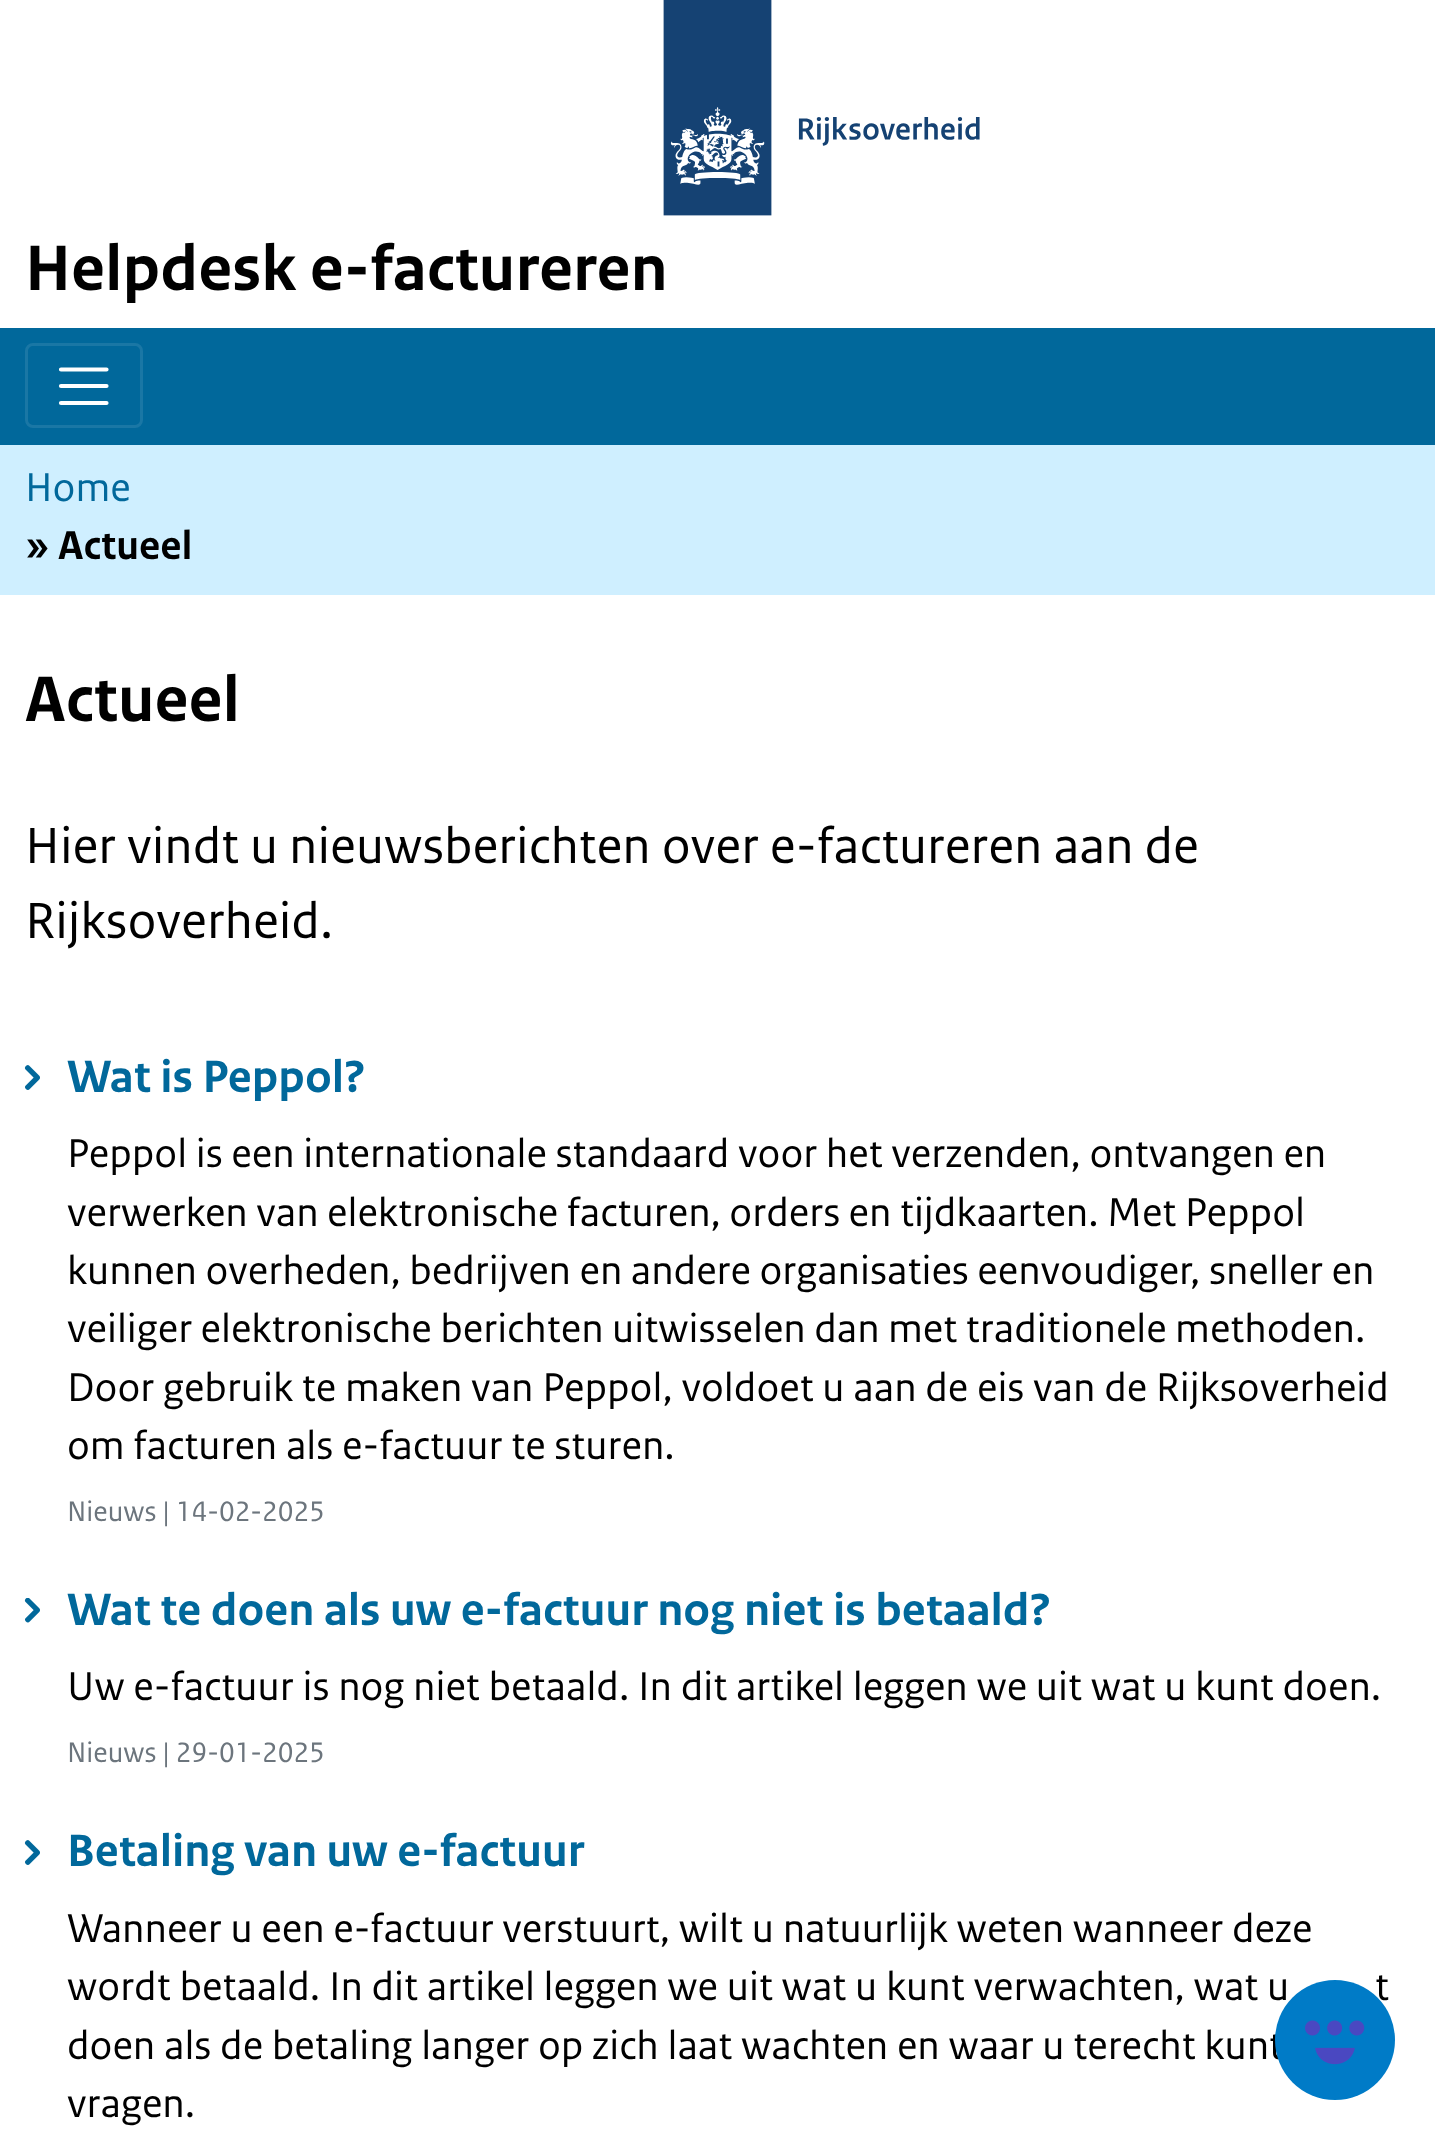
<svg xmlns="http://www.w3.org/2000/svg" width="1435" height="2139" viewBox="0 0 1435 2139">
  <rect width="100%" height="100%" fill="#fff"/>
  <image x="663" y="0" width="317" height="216" href="img/1.png"/>
  <path d="M0 328h1435v117H0z" fill="#01689b"/>
  <rect x="26.5" y="344.5" width="115" height="82" rx="6.5" fill="none" stroke="#1a77a5" stroke-width="3"/>
  <path d="M61 369.5H106.5M61 386H106.5M61 403H106.5" fill="none" stroke="#fff" stroke-width="4.2" stroke-linecap="round"/>
  <path d="M0 445h1435v150H0z" fill="#cfefff"/>
  <image x="24" y="1065" width="16" height="25" href="img/2.png"/>
  <image x="24" y="1598" width="16" height="25" href="img/3.png"/>
  <image x="24" y="1840" width="16" height="25" href="img/2.png"/>
  <text x="25" y="290" font-family="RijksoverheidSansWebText" font-size="67.5" font-weight="bold" fill="#000">Helpdesk e-factureren</text>
  <text x="25" y="501" font-family="RijksoverheidSansWebText" font-size="42.2" fill="#01689b">Home</text>
  <text x="25" y="559" font-family="RijksoverheidSansWebText" font-size="42.2" font-weight="bold" fill="#000">» Actueel</text>
  <text x="25" y="721" font-family="RijksoverheidSansWebText" font-size="67.5" font-weight="bold" fill="#000">Actueel</text>
  <g font-family="RijksoverheidSansWebText" font-size="53.4" fill="#000">
    <text x="25" y="863">Hier vindt u nieuwsberichten over e-factureren aan de</text>
    <text x="25" y="938">Rijksoverheid.</text>
  </g>
  <text x="67" y="1092" font-family="RijksoverheidSansWebText" font-size="47.5" font-weight="bold" fill="#01689b">Wat is Peppol?</text>
  <g font-family="RijksoverheidSansWebText" font-size="42.2" fill="#000">
    <text x="67" y="1167" word-spacing="-0.1">Peppol is een internationale standaard voor het verzenden, ontvangen en</text>
    <text x="67" y="1226" word-spacing="-0.25">verwerken van elektronische facturen, orders en tijdkaarten. Met Peppol</text>
    <text x="67" y="1284" word-spacing="-0.25">kunnen overheden, bedrijven en andere organisaties eenvoudiger, sneller en</text>
    <text x="67" y="1342" word-spacing="-0.25">veiliger elektronische berichten uitwisselen dan met traditionele methoden.</text>
    <text x="67" y="1401">Door gebruik te maken van Peppol, voldoet u aan de eis van de Rijksoverheid</text>
    <text x="67" y="1459">om facturen als e-factuur te sturen.</text>
  </g>
  <text x="67" y="1521" font-family="RijksoverheidSansWebText" font-size="29.6" fill="#6c757d">Nieuws | 14-02-2025</text>
  <text x="67" y="1625" font-family="RijksoverheidSansWebText" font-size="47.5" font-weight="bold" fill="#01689b">Wat te doen als uw e-factuur nog niet is betaald?</text>
  <text x="67" y="1700" font-family="RijksoverheidSansWebText" font-size="42.2" fill="#000">Uw e-factuur is nog niet betaald. In dit artikel leggen we uit wat u kunt doen.</text>
  <text x="67" y="1762" font-family="RijksoverheidSansWebText" font-size="29.6" fill="#6c757d">Nieuws | 29-01-2025</text>
  <text x="67" y="1866" font-family="RijksoverheidSansWebText" font-size="47.5" font-weight="bold" fill="#01689b">Betaling van uw e-factuur</text>
  <g font-family="RijksoverheidSansWebText" font-size="42.2" fill="#000">
    <text x="67" y="1942">Wanneer u een e-factuur verstuurt, wilt u natuurlijk weten wanneer deze</text>
    <text x="67" y="2000">wordt betaald. In dit artikel leggen we uit wat u kunt verwachten, wat u</text>
    <text x="1375" y="2000">t</text>
    <text x="67" y="2059">doen als de betaling langer op zich laat wachten en waar u terecht kunt</text>
    <text x="67" y="2117">vragen.</text>
  </g>
  <circle cx="1335" cy="2040" r="60" fill="#007bc7"/>
  <image x="1305" y="2020" width="60" height="45" href="img/4.png"/>
</svg>
